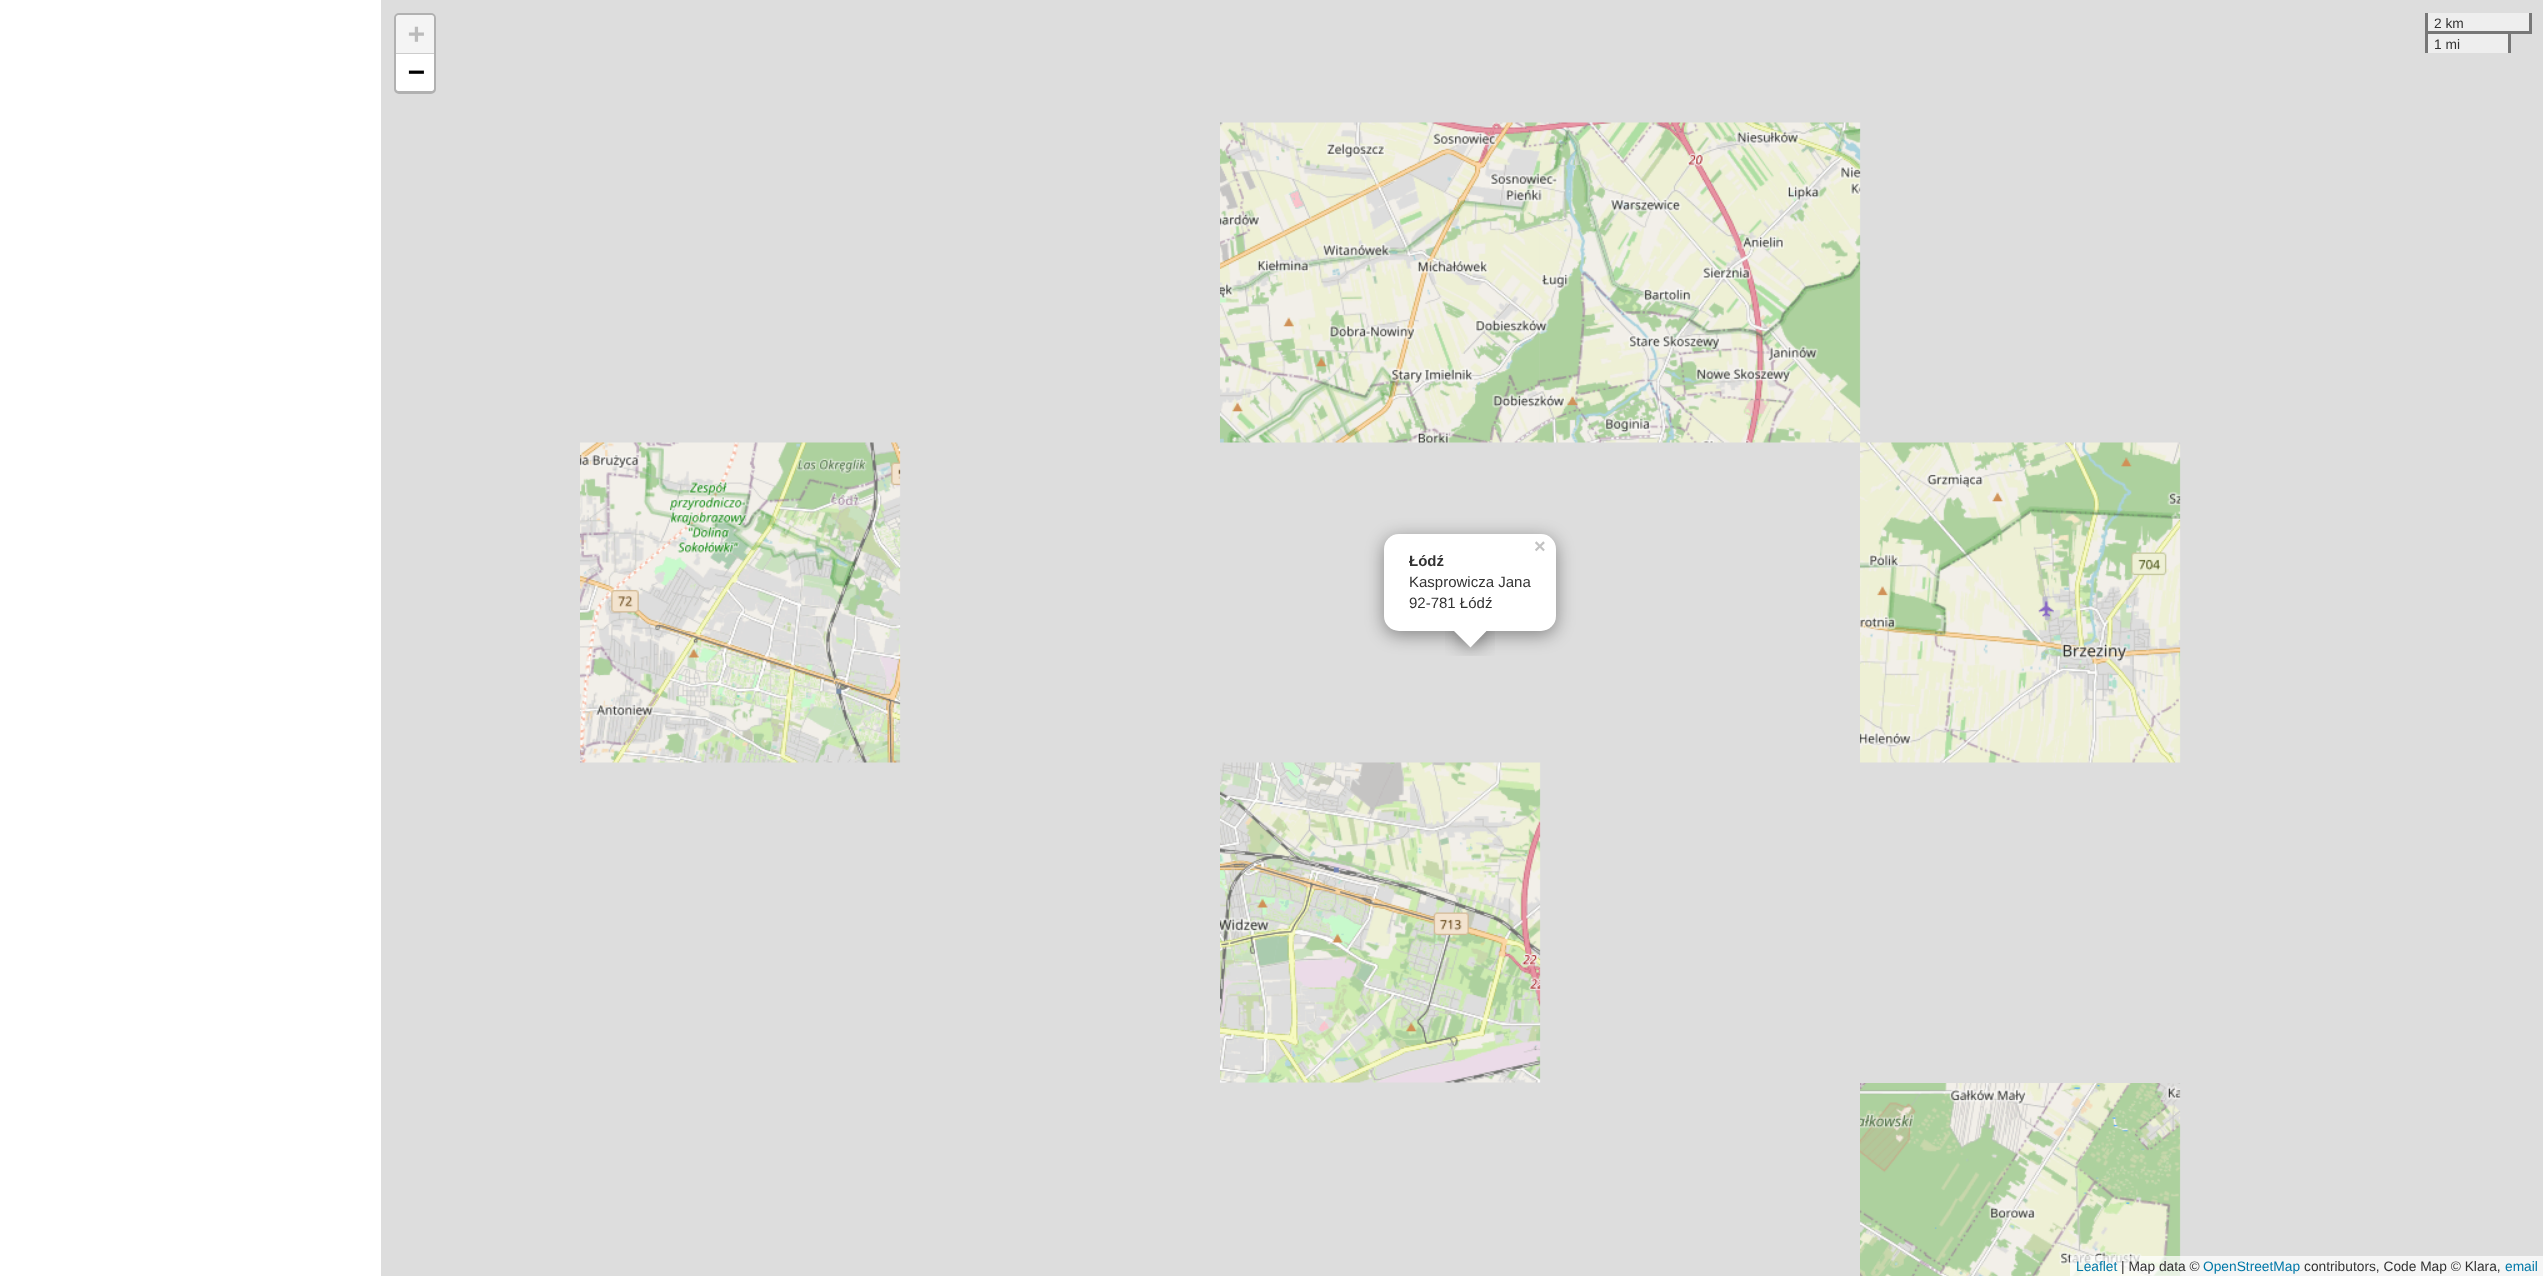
<svg xmlns="http://www.w3.org/2000/svg" width="2543" height="1276" viewBox="0 0 2543 1276">
  <defs>
    <clipPath id="clip1"><path d="M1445 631h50v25H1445z"/></clipPath>
    <clipPath id="clip2"><path d="M1445 631h50v25H1445z"/></clipPath>
  </defs>
  <rect width="100%" height="100%" fill="#fff"/>
  <path d="M381 0h2162v1276H381z" fill="#ddd"/>
  <path d="M2428 34h80v19H2428z" fill="#eee"/>
  <rect x="395.5" y="14.5" width="39" height="78" rx="3.5" fill="none" stroke="#b1b1b1" stroke-width="3"/>
  <path d="M398.5 15H431.5C433 15 434 16 434 17.5V54H396V17.5C396 16 397 15 398.5 15Z" fill="#f4f4f4"/>
  <path d="M396 53h38v1H396z" fill="#ccc"/>
  <path d="M396 54H434V88.5C434 90 433 91 431.5 91H398.5C397 91 396 90 396 88.5Z" fill="#fff"/>
  <path d="M2428 13h101v18H2428z" fill="#eee"/>
  <path d="M2529 13h3v21H2529z" fill="#777"/>
  <path d="M2511 31h20v3H2511z" fill="#777"/>
  <path d="M2425 13h3v21H2425z" fill="#777"/>
  <path d="M2425 31h85v3H2425z" fill="#777"/>
  <path d="M2508 31h3v22H2508z" fill="#777"/>
  <path d="M2425 31h3v22H2425z" fill="#777"/>
  <image x="1860" y="1083" width="321" height="193" href="img/6.png"/>
  <path d="M2070 1256h473v20H2070z" fill="#ffffffb3"/>
  <image x="1220" y="122" width="321" height="321" href="img/1.png"/>
  <image x="1540" y="122" width="321" height="321" href="img/2.png"/>
  <image x="580" y="442" width="321" height="321" href="img/3.png"/>
  <image x="1860" y="442" width="321" height="321" href="img/4.png"/>
  <image x="1220" y="762" width="321" height="321" href="img/5.png"/>
  <rect x="1384" y="538" width="172" height="97" rx="15" fill="#00000066" filter="blur(9px)"/>
  <rect x="1384" y="534" width="172" height="97" rx="15" fill="#fff"/>
  <g clip-path="url(#clip1)">
    <path d="M1459 623h24v23H1459z" fill="#00000066" filter="blur(9px)"/>
  </g>
  <g clip-path="url(#clip2)">
    <path d="M1470.5 614L1487 630.5L1470.5 647.5L1453.5 630.5Z" fill="#fff"/>
  </g>
  <text x="408" y="43" font-family="DejaVu Sans Mono" font-size="28" font-weight="bold" fill="#bbb">+</text>
  <text x="408" y="81" font-family="DejaVu Sans Mono" font-size="28" font-weight="bold" fill="#000">−</text>
  <g font-family="Liberation Sans" font-size="13.75" fill="#333">
    <text x="2434" y="28">2 km</text>
    <text x="2434" y="49">1 mi</text>
  </g>
  <text x="2076" y="1271" font-family="Liberation Sans" font-size="13.75" fill="#0078a8">Leaflet</text>
  <text x="2121" y="1271" font-family="Liberation Sans" font-size="13.75" fill="#333">| Map data ©</text>
  <text x="2203" y="1271" font-family="Liberation Sans" font-size="13.75" fill="#0078a8">OpenStreetMap</text>
  <text x="2304" y="1271" font-family="Liberation Sans" font-size="13.75" fill="#333">contributors, Code Map © Klara,</text>
  <text x="2505" y="1271" font-family="Liberation Sans" font-size="13.75" fill="#0078a8">email</text>
  <text x="1534" y="553" font-family="Liberation Sans" font-size="20" font-weight="bold" fill="#c3c3c3">×</text>
  <text x="1409" y="566" font-family="Liberation Sans" font-size="15" font-weight="bold" fill="#333">Łódź</text>
  <g font-family="Liberation Sans" font-size="15" fill="#333">
    <text x="1409" y="587">Kasprowicza Jana</text>
    <text x="1409" y="608">92-781 Łódź</text>
  </g>
</svg>
